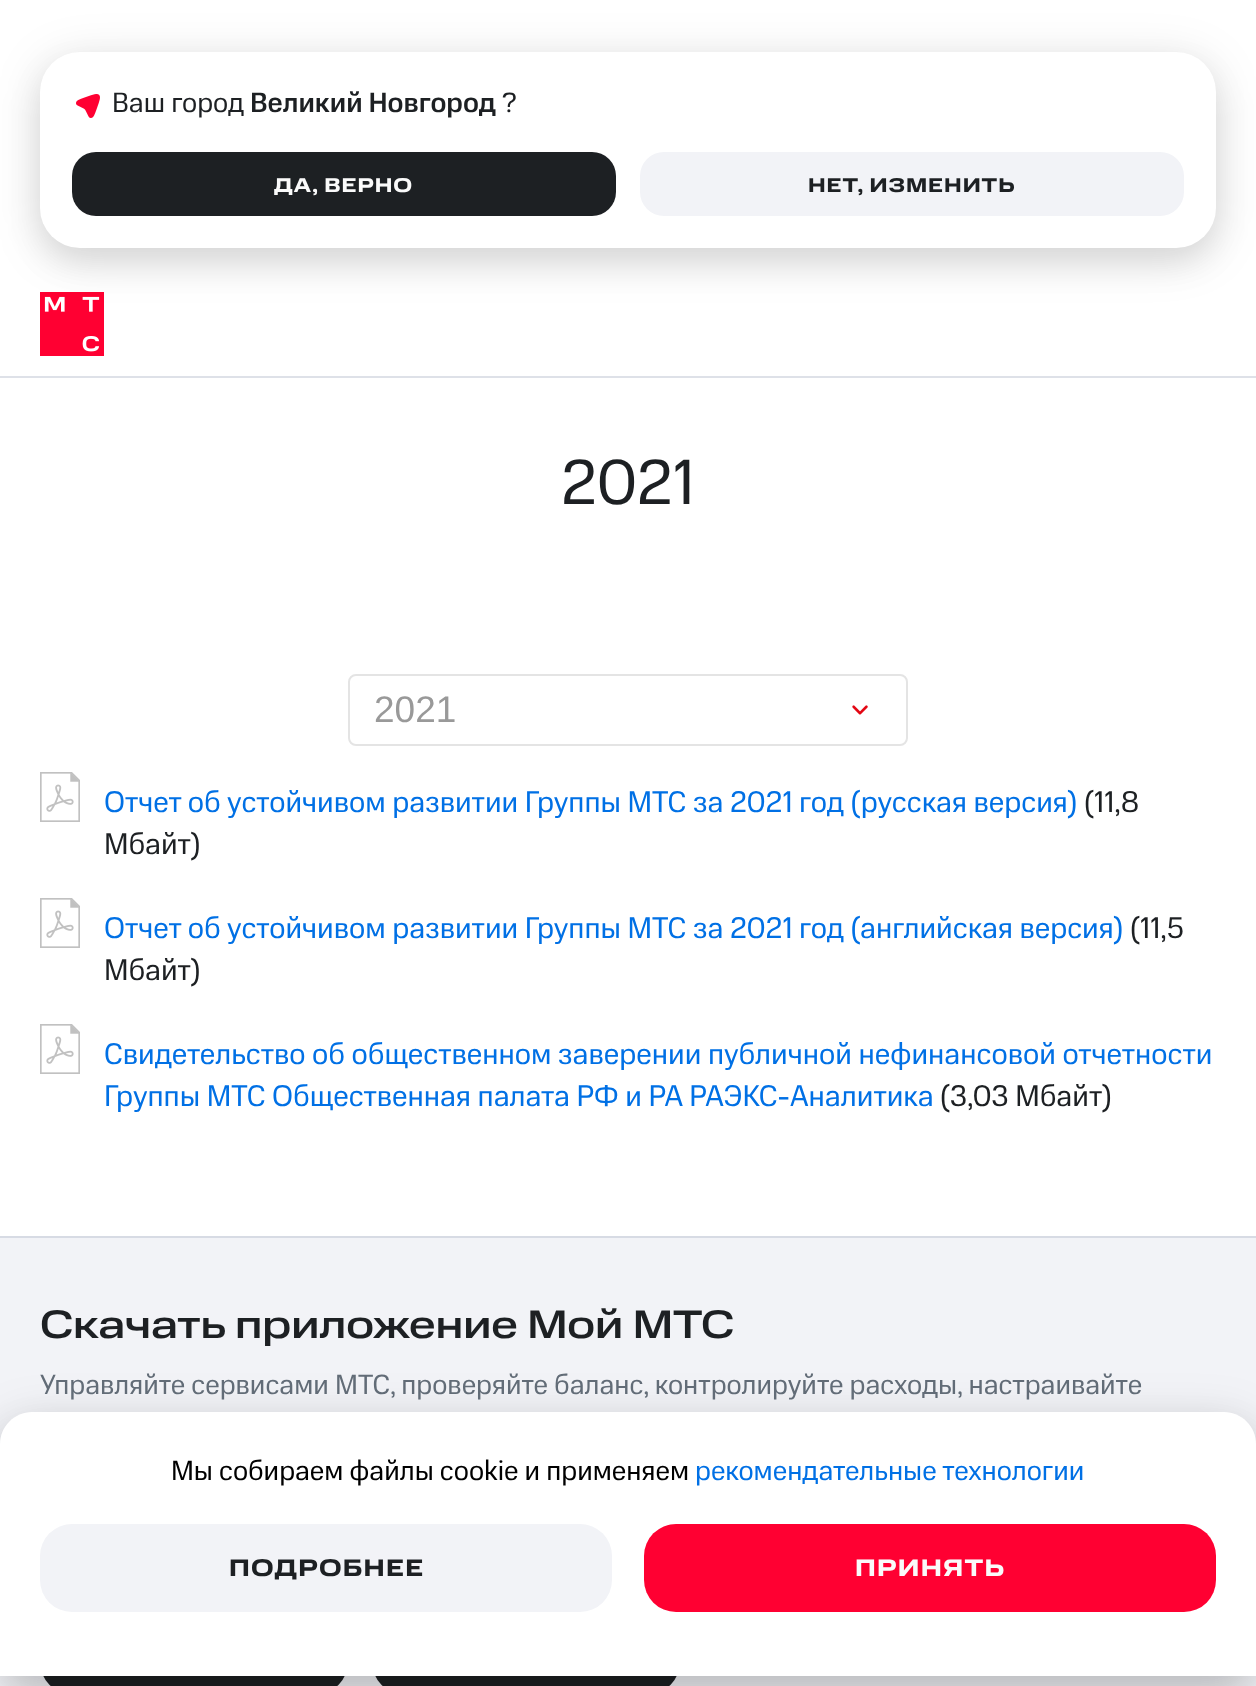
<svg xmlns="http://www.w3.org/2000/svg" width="1256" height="1686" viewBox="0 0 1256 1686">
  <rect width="100%" height="100%" fill="#fff"/>
  <path d="M0 376h1256v2H0z" fill="#dee1e8"/>
  <image x="40" y="292" width="64" height="64" href="img/2.png"/>
  <rect x="40" y="68" width="1176" height="196" rx="40" fill="#00000014" filter="blur(16px)"/>
  <rect x="40" y="60" width="1176" height="196" rx="40" fill="#0000001f" filter="blur(24px)"/>
  <rect x="40" y="52" width="1176" height="196" rx="40" fill="#fff"/>
  <image x="76" y="94" width="24" height="24" href="img/1.png"/>
  <rect x="72" y="152" width="544" height="64" rx="24" fill="#1d2023"/>
  <rect x="640" y="152" width="544" height="64" rx="24" fill="#f2f3f7"/>
  <rect x="349" y="675" width="558" height="70" rx="7" fill="none" stroke="#e4e4e4" stroke-width="2"/>
  <image x="852" y="705" width="16" height="10" href="img/3.png"/>
  <image x="40" y="772" width="40" height="50" href="img/4.png"/>
  <image x="40" y="898" width="40" height="50" href="img/4.png"/>
  <image x="40" y="1024" width="40" height="50" href="img/4.png"/>
  <path d="M0 1238h1256v448H0z" fill="#f2f3f7"/>
  <path d="M0 1236h1256v2H0z" fill="#d7dbe4"/>
  <rect x="40" y="1606" width="308" height="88" rx="32" fill="#1d2023"/>
  <rect x="372" y="1606" width="308" height="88" rx="32" fill="#1d2023"/>
  <rect y="1436" width="1256" height="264" rx="32" fill="#00000024" filter="blur(20px)"/>
  <rect y="1420" width="1256" height="264" rx="32" fill="#0000001f" filter="blur(24px)"/>
  <path d="M32 1412H1224C1241.5 1412 1256 1426.5 1256 1444V1676H0V1444C0 1426.5 14.5 1412 32 1412Z" fill="#fff"/>
  <rect x="40" y="1524" width="572" height="88" rx="32" fill="#f2f3f7"/>
  <rect x="644" y="1524" width="572" height="88" rx="32" fill="#ff0032"/>
  <text x="112" y="112" font-family="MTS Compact" font-size="28" fill="#1d2023">Ваш город</text>
  <text x="250" y="112" font-family="MTS Compact" font-size="28" font-weight="500" fill="#1d2023">Великий Новгород</text>
  <text x="502" y="112" font-family="MTS Compact" font-size="28" fill="#1d2023">?</text>
  <text x="274" y="192" font-family="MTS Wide" font-size="20" font-weight="bold" letter-spacing="1" fill="#fafafa">ДА, ВЕРНО</text>
  <text x="808" y="192" font-family="MTS Wide" font-size="20" font-weight="bold" letter-spacing="1" fill="#1d2023">НЕТ, ИЗМЕНИТЬ</text>
  <text x="561" y="504" font-family="MTS Compact" font-size="64" fill="#1d2023">2021</text>
  <text x="374" y="722" font-family="Liberation Sans" font-size="37" fill="#999">2021</text>
  <text x="104" y="812" font-family="MTS Compact" font-size="30" fill="#0070e5">Отчет об устойчивом развитии Группы МТС за 2021 год (русская версия)</text>
  <g font-family="MTS Compact" font-size="30" fill="#1d2023">
    <text x="1084" y="812">(11,8</text>
    <text x="104" y="854">Мбайт)</text>
  </g>
  <text x="104" y="938" font-family="MTS Compact" font-size="30" fill="#0070e5">Отчет об устойчивом развитии Группы МТС за 2021 год (английская версия)</text>
  <g font-family="MTS Compact" font-size="30" fill="#1d2023">
    <text x="1130" y="938">(11,5</text>
    <text x="104" y="980">Мбайт)</text>
  </g>
  <g font-family="MTS Compact" font-size="30" fill="#0070e5">
    <text x="104" y="1064">Свидетельство об общественном заверении публичной нефинансовой отчетности</text>
    <text x="104" y="1106">Группы МТС Общественная палата РФ и РА РАЭКС-Аналитика</text>
  </g>
  <text x="940" y="1106" font-family="MTS Compact" font-size="30" fill="#1d2023">(3,03 Мбайт)</text>
  <text x="40" y="1338" font-family="MTS Wide" font-size="40" font-weight="500" fill="#1d2023">Скачать приложение Мой МТС</text>
  <text x="40" y="1394" font-family="MTS Compact" font-size="28" fill="#626c77">Управляйте сервисами МТС, проверяйте баланс, контролируйте расходы, настраивайте</text>
  <text x="171" y="1480" font-family="MTS Compact" font-size="28" fill="#000">Мы собираем файлы cookie и применяем</text>
  <text x="695" y="1480" font-family="MTS Compact" font-size="28" fill="#0070e5">рекомендательные технологии</text>
  <text x="229" y="1576" font-family="MTS Wide" font-size="24" font-weight="bold" letter-spacing="1.25" fill="#1d2023">ПОДРОБНЕЕ</text>
  <text x="855" y="1576" font-family="MTS Wide" font-size="24" font-weight="bold" letter-spacing="1.25" fill="#fafafa">ПРИНЯТЬ</text>
</svg>
